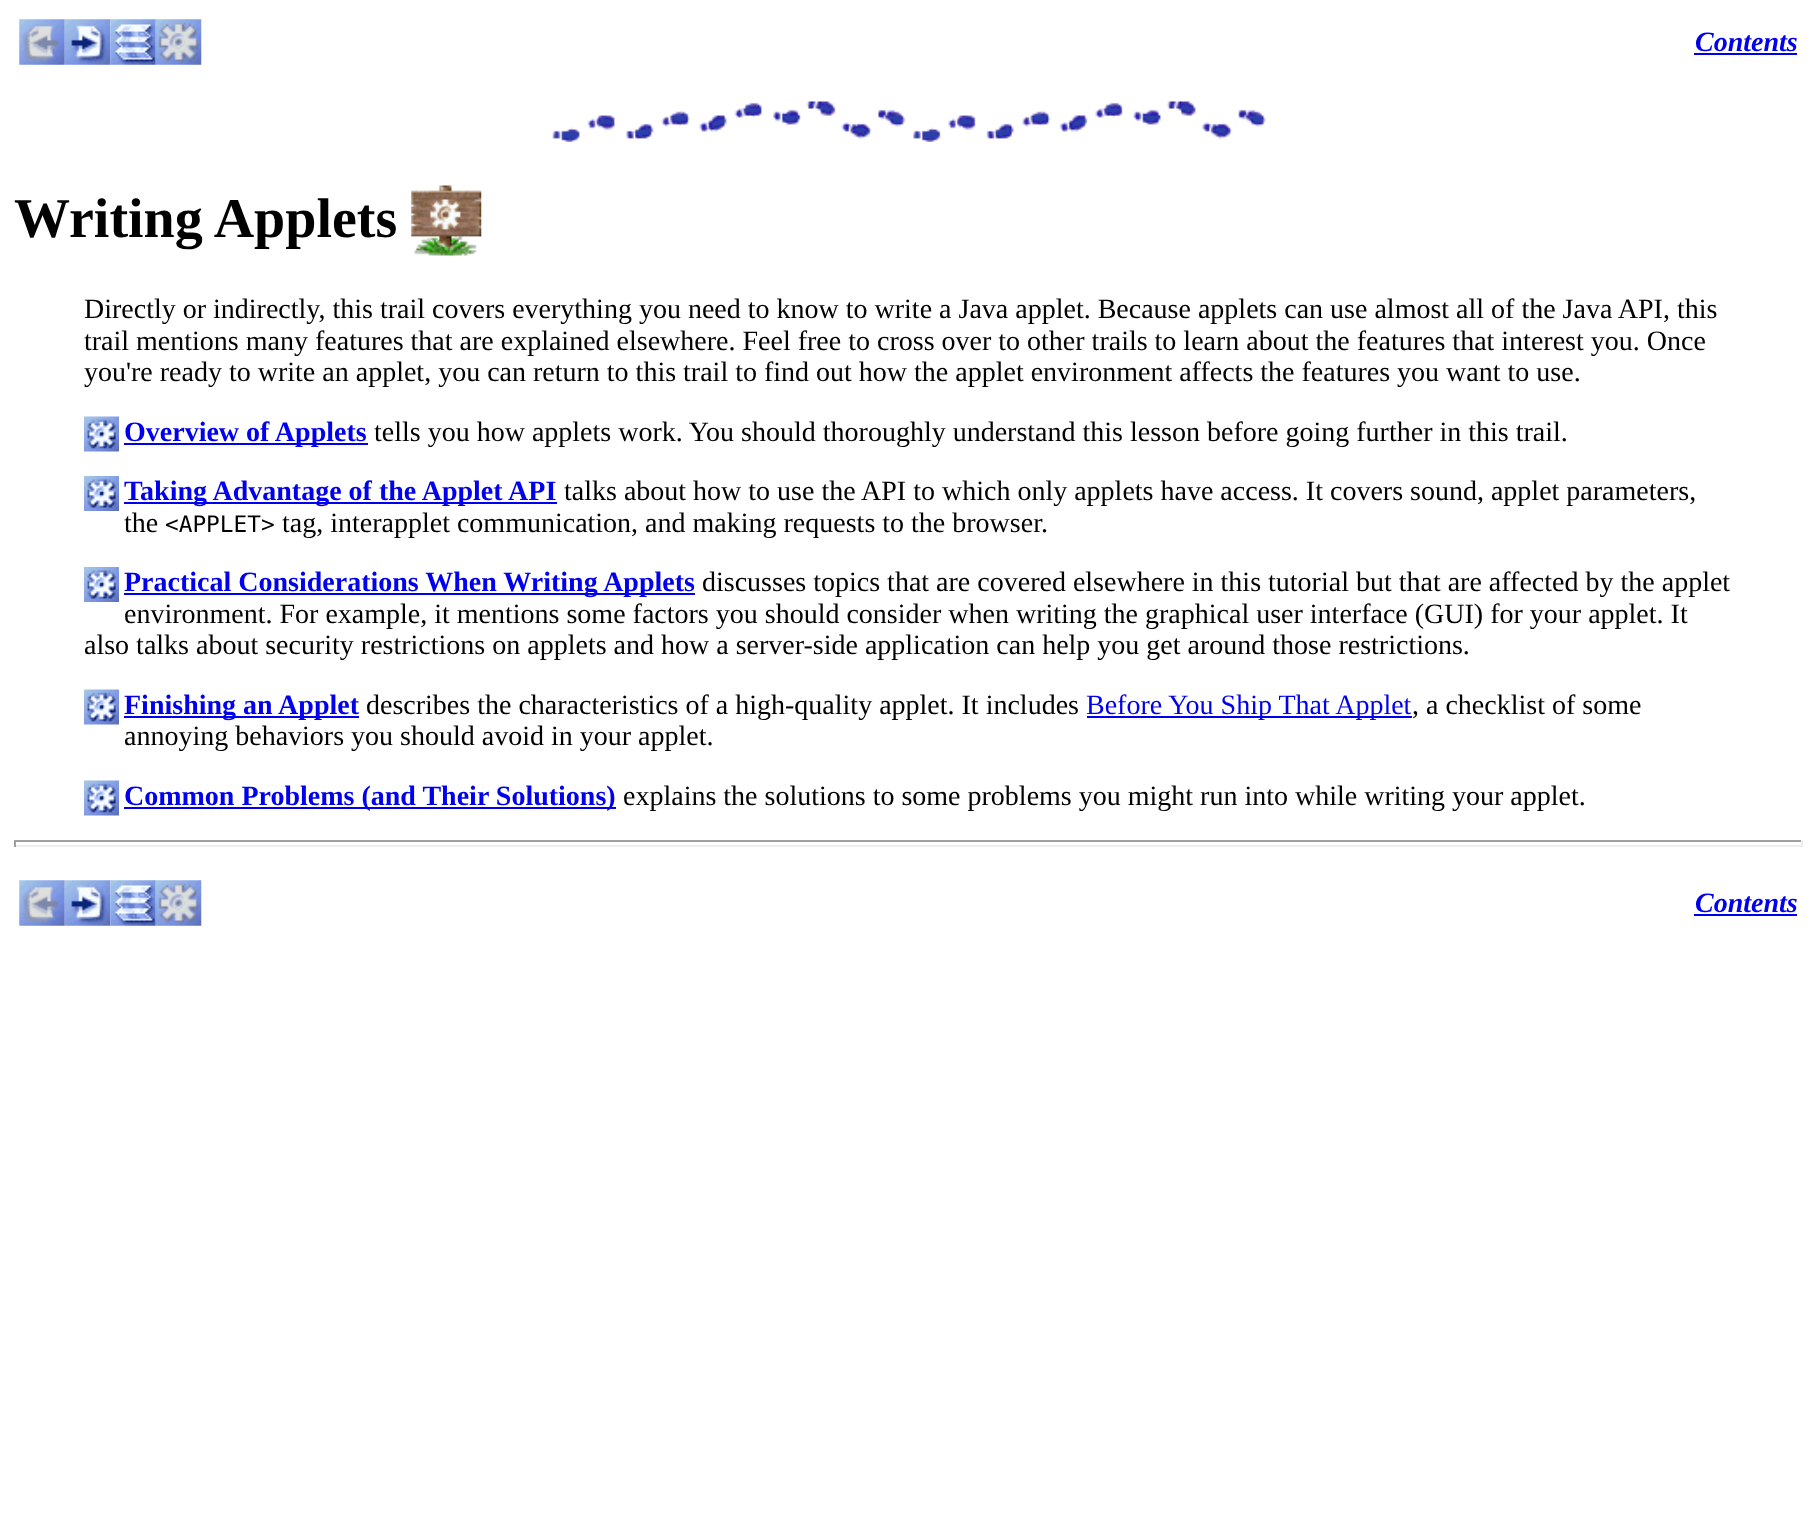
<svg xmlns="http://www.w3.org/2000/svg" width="1815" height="1537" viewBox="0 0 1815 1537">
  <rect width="100%" height="100%" fill="#fff"/>
  <image x="19" y="19" width="46" height="46" href="img/1.png"/>
  <image x="64" y="19" width="47" height="46" href="img/2.png"/>
  <image x="110" y="19" width="46" height="46" href="img/3.png"/>
  <image x="155" y="19" width="47" height="46" href="img/4.png"/>
  <path d="M1694 53h103v2H1694z" fill="#00e"/>
  <image x="552" y="101" width="353" height="41" href="img/5.png"/>
  <image x="913" y="101" width="353" height="41" href="img/6.png"/>
  <image x="411" y="185" width="71" height="71" href="img/7.png"/>
  <image x="84" y="416" width="35" height="36" href="img/8.png"/>
  <path d="M124 443h244v2H124z" fill="#00e"/>
  <image x="84" y="476" width="35" height="35" href="img/9.png"/>
  <path d="M124 502h433v2H124z" fill="#00e"/>
  <image x="84" y="567" width="35" height="35" href="img/9.png"/>
  <path d="M124 593h571v2H124z" fill="#00e"/>
  <image x="84" y="689" width="35" height="36" href="img/8.png"/>
  <path d="M124 716h235v2H124z" fill="#00e"/>
  <path d="M1087 716h325v2H1087z" fill="#00e"/>
  <image x="84" y="780" width="35" height="36" href="img/8.png"/>
  <path d="M124 807h492v2H124z" fill="#00e"/>
  <path d="M14 840h1789v2H14z" fill="#9f9f9f"/>
  <path d="M1801 840h2v7H1801z" fill="#eee"/>
  <path d="M14 845h1789v2H14z" fill="#eee"/>
  <path d="M14 840h2v7H14z" fill="#9f9f9f"/>
  <image x="19" y="880" width="46" height="46" href="img/10.png"/>
  <image x="64" y="880" width="47" height="46" href="img/11.png"/>
  <image x="110" y="880" width="46" height="46" href="img/12.png"/>
  <image x="155" y="880" width="47" height="46" href="img/13.png"/>
  <path d="M1694 914h103v2H1694z" fill="#00e"/>
  <text x="1695" y="51" font-family="Liberation Serif" font-size="28" font-weight="bold" font-style="italic" fill="#00e">Contents</text>
  <text x="14" y="237" font-family="Liberation Serif" font-size="56" font-weight="bold" fill="#000">Writing Applets</text>
  <g font-family="Liberation Serif" font-size="28" fill="#000">
    <text x="84" y="318">Directly or indirectly, this trail covers everything you need to know to write a Java applet. Because applets can use almost all of the Java API, this</text>
    <text x="84" y="350">trail mentions many features that are explained elsewhere. Feel free to cross over to other trails to learn about the features that interest you. Once</text>
    <text x="84" y="381">you're ready to write an applet, you can return to this trail to find out how the applet environment affects the features you want to use.</text>
  </g>
  <text x="124" y="441" font-family="Liberation Serif" font-size="28" font-weight="bold" fill="#00e">Overview of Applets</text>
  <text x="374" y="441" font-family="Liberation Serif" font-size="28" fill="#000">tells you how applets work. You should thoroughly understand this lesson before going further in this trail.</text>
  <text x="124" y="500" font-family="Liberation Serif" font-size="28" font-weight="bold" fill="#00e">Taking Advantage of the Applet API</text>
  <g font-family="Liberation Serif" font-size="28" fill="#000">
    <text x="564" y="500">talks about how to use the API to which only applets have access. It covers sound, applet parameters,</text>
    <text x="124" y="532">the</text>
  </g>
  <text x="165" y="532" font-family="DejaVu Sans Mono" font-size="22.75" fill="#000">&lt;APPLET&gt;</text>
  <text x="282" y="532" font-family="Liberation Serif" font-size="28" fill="#000">tag, interapplet communication, and making requests to the browser.</text>
  <text x="124" y="591" font-family="Liberation Serif" font-size="28" font-weight="bold" fill="#00e">Practical Considerations When Writing Applets</text>
  <g font-family="Liberation Serif" font-size="28" fill="#000">
    <text x="702" y="591">discusses topics that are covered elsewhere in this tutorial but that are affected by the applet</text>
    <text x="124" y="623">environment. For example, it mentions some factors you should consider when writing the graphical user interface (GUI) for your applet. It</text>
    <text x="84" y="654">also talks about security restrictions on applets and how a server-side application can help you get around those restrictions.</text>
  </g>
  <text x="124" y="714" font-family="Liberation Serif" font-size="28" font-weight="bold" fill="#00e">Finishing an Applet</text>
  <text x="366" y="714" font-family="Liberation Serif" font-size="28" fill="#000">describes the characteristics of a high-quality applet. It includes</text>
  <text x="1086" y="714" font-family="Liberation Serif" font-size="28" fill="#00e">Before You Ship That Applet</text>
  <g font-family="Liberation Serif" font-size="28" fill="#000">
    <text x="1412" y="714">, a checklist of some</text>
    <text x="124" y="745">annoying behaviors you should avoid in your applet.</text>
  </g>
  <text x="124" y="805" font-family="Liberation Serif" font-size="28" font-weight="bold" fill="#00e">Common Problems (and Their Solutions)</text>
  <text x="623" y="805" font-family="Liberation Serif" font-size="28" fill="#000">explains the solutions to some problems you might run into while writing your applet.</text>
  <text x="1695" y="912" font-family="Liberation Serif" font-size="28" font-weight="bold" font-style="italic" fill="#00e">Contents</text>
</svg>
